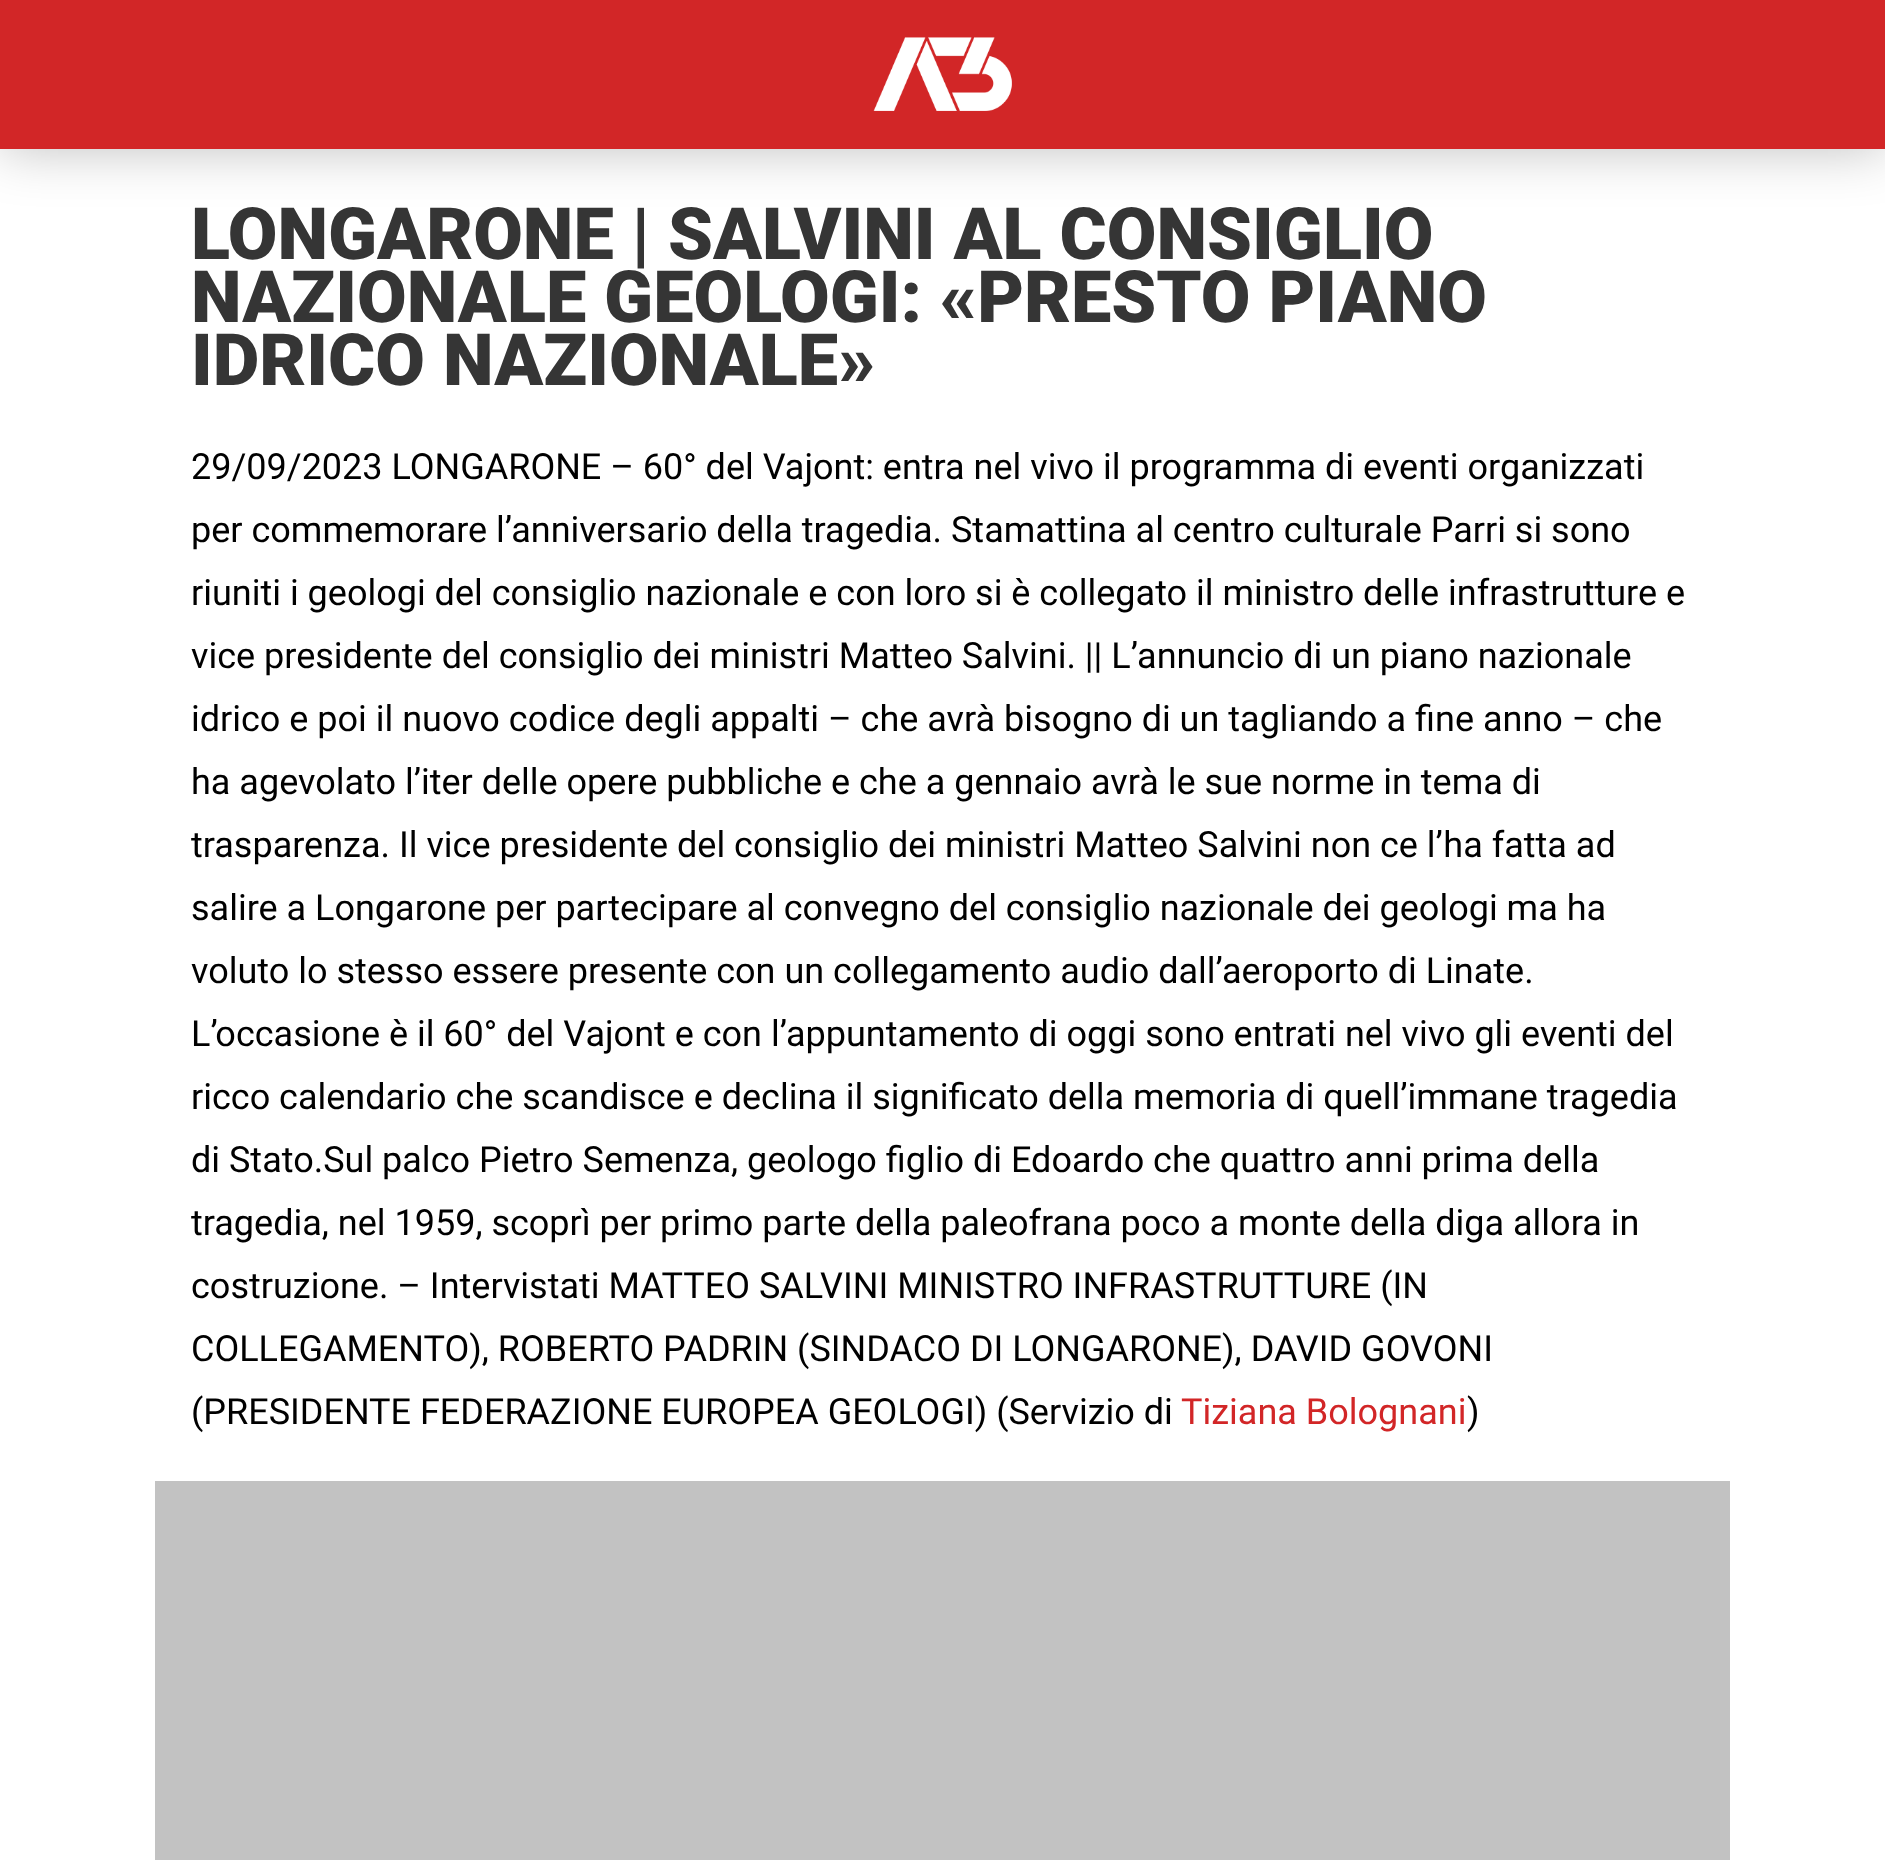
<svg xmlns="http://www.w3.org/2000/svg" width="1885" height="1860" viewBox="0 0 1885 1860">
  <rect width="100%" height="100%" fill="#fff"/>
  <path d="M0 0h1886v149H0z" fill="#00000040" filter="blur(27px)"/>
  <path d="M0 0h1885v149H0z" fill="#d22627"/>
  <image x="873" y="37" width="139" height="74" href="img/1.png"/>
  <path d="M155 1481h1575v379H155z" fill="#c2c2c2"/>
  <g font-family="Roboto" font-size="72" font-weight="900" fill="#353535">
    <text x="191" y="259">LONGARONE | SALVINI AL CONSIGLIO</text>
    <text x="191" y="322">NAZIONALE GEOLOGI: «PRESTO PIANO</text>
    <text x="191" y="385">IDRICO NAZIONALE»</text>
  </g>
  <g font-family="Roboto" font-size="36" fill="#000">
    <text x="191" y="479">29/09/2023 LONGARONE – 60° del Vajont: entra nel vivo il programma di eventi organizzati</text>
    <text x="191" y="542">per commemorare l’anniversario della tragedia. Stamattina al centro culturale Parri si sono</text>
    <text x="191" y="605">riuniti i geologi del consiglio nazionale e con loro si è collegato il ministro delle infrastrutture e</text>
    <text x="191" y="668">vice presidente del consiglio dei ministri Matteo Salvini. || L’annuncio di un piano nazionale</text>
    <text x="191" y="731">idrico e poi il nuovo codice degli appalti – che avrà bisogno di un tagliando a fine anno – che</text>
    <text x="191" y="794">ha agevolato l’iter delle opere pubbliche e che a gennaio avrà le sue norme in tema di</text>
    <text x="191" y="857">trasparenza. Il vice presidente del consiglio dei ministri Matteo Salvini non ce l’ha fatta ad</text>
    <text x="191" y="920">salire a Longarone per partecipare al convegno del consiglio nazionale dei geologi ma ha</text>
    <text x="191" y="983">voluto lo stesso essere presente con un collegamento audio dall’aeroporto di Linate.</text>
    <text x="191" y="1046">L’occasione è il 60° del Vajont e con l’appuntamento di oggi sono entrati nel vivo gli eventi del</text>
    <text x="191" y="1109">ricco calendario che scandisce e declina il significato della memoria di quell’immane tragedia</text>
    <text x="191" y="1172">di Stato.Sul palco Pietro Semenza, geologo figlio di Edoardo che quattro anni prima della</text>
    <text x="191" y="1235">tragedia, nel 1959, scoprì per primo parte della paleofrana poco a monte della diga allora in</text>
    <text x="191" y="1298">costruzione. – Intervistati MATTEO SALVINI MINISTRO INFRASTRUTTURE (IN</text>
    <text x="191" y="1361">COLLEGAMENTO), ROBERTO PADRIN (SINDACO DI LONGARONE), DAVID GOVONI</text>
    <text x="191" y="1424">(PRESIDENTE FEDERAZIONE EUROPEA GEOLOGI) (Servizio di</text>
  </g>
  <text x="1181" y="1424" font-family="Roboto" font-size="36" fill="#d22627">Tiziana Bolognani</text>
  <text x="1467" y="1424" font-family="Roboto" font-size="36" fill="#000">)</text>
</svg>
